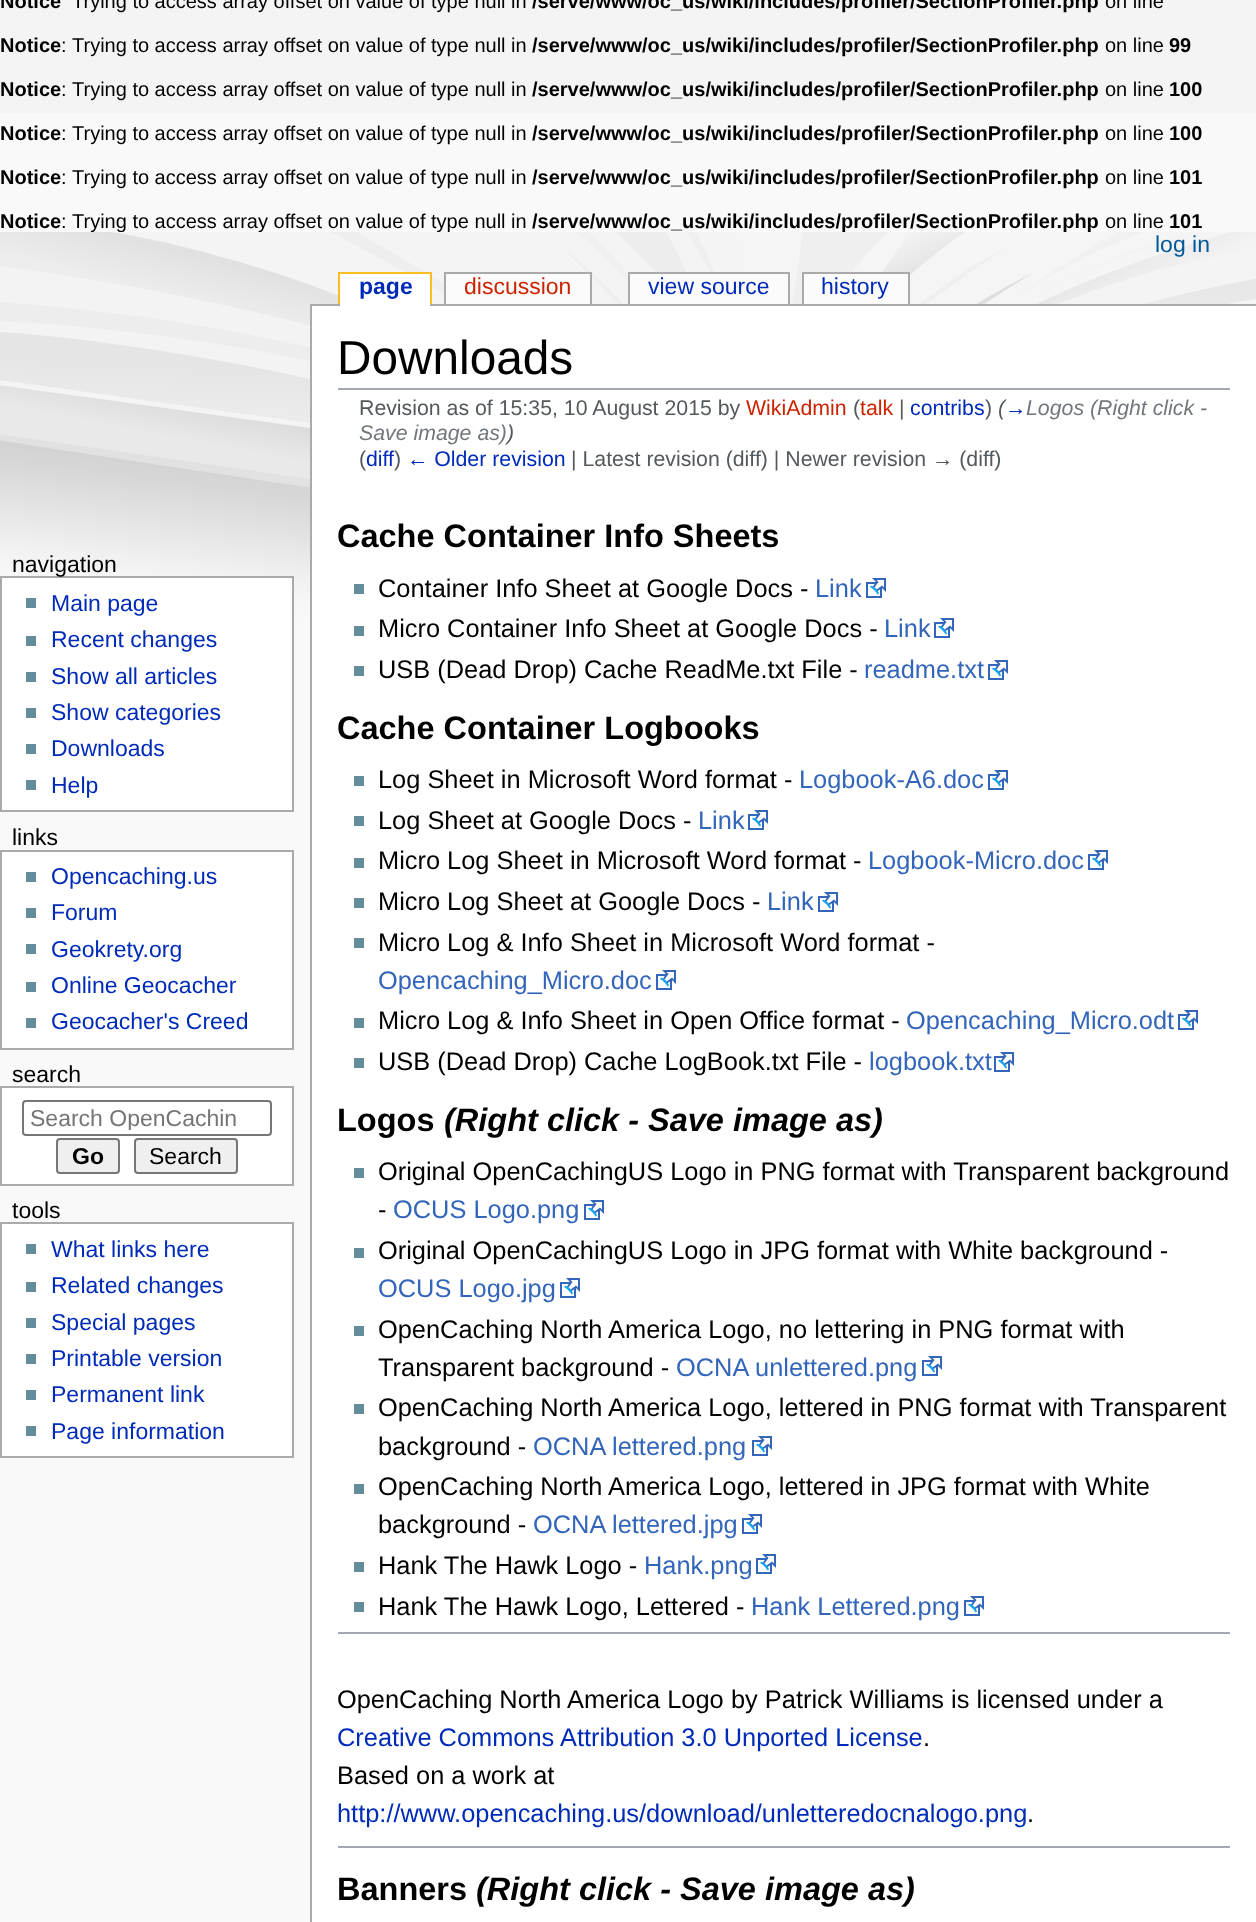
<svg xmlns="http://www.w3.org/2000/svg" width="1256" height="1922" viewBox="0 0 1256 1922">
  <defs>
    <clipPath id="clip1"><path d="M30 1106h210v24H30z"/></clipPath>
  </defs>
  <rect width="100%" height="100%" fill="#f9f9f9"/>
  <path d="M0 0h1256v113H0z" fill="#f4f4f4"/>
  <path d="M1 851h292v198H1z" fill="#fff" stroke="#aaa" stroke-width="2"/>
  <path d="M26 872h10v10H26z" fill="#638c9c"/>
  <path d="M26 908h10v10H26z" fill="#638c9c"/>
  <path d="M26 944h10v10H26z" fill="#638c9c"/>
  <path d="M26 982h10v10H26z" fill="#638c9c"/>
  <path d="M26 1018h10v10H26z" fill="#638c9c"/>
  <path d="M1 1087h292v98H1z" fill="#fff" stroke="#aaa" stroke-width="2"/>
  <rect x="23" y="1101" width="248" height="34" rx="3" fill="none" stroke="#767676" stroke-width="2"/>
  <rect x="57" y="1139" width="62" height="34" rx="3" fill="#efefef" stroke="#767676" stroke-width="2"/>
  <rect x="135" y="1139" width="102" height="34" rx="3" fill="#efefef" stroke="#767676" stroke-width="2"/>
  <path d="M1 1223h292v234H1z" fill="#fff" stroke="#aaa" stroke-width="2"/>
  <path d="M26 1244h10v10H26z" fill="#638c9c"/>
  <path d="M26 1282h10v10H26z" fill="#638c9c"/>
  <path d="M26 1318h10v10H26z" fill="#638c9c"/>
  <path d="M26 1354h10v10H26z" fill="#638c9c"/>
  <path d="M26 1390h10v10H26z" fill="#638c9c"/>
  <path d="M26 1426h10v10H26z" fill="#638c9c"/>
  <text x="0" y="8" font-family="Liberation Sans" font-size="20" font-weight="bold" fill="#000">Notice</text>
  <text x="72" y="8" font-family="Liberation Sans" font-size="20" fill="#000">Trying to access array offset on value of type null in</text>
  <text x="532" y="8" font-family="Liberation Sans" font-size="20" font-weight="bold" fill="#000">/serve/www/oc_us/wiki/includes/profiler/SectionProfiler.php</text>
  <text x="1105" y="8" font-family="Liberation Sans" font-size="20" fill="#000">on line</text>
  <text x="0" y="52" font-family="Liberation Sans" font-size="20" font-weight="bold" fill="#000">Notice</text>
  <g font-family="Liberation Sans" font-size="20" fill="#000">
    <text x="61" y="52">:</text>
    <text x="72" y="52">Trying to access array offset on value of type null in</text>
  </g>
  <text x="532" y="52" font-family="Liberation Sans" font-size="20" font-weight="bold" fill="#000">/serve/www/oc_us/wiki/includes/profiler/SectionProfiler.php</text>
  <text x="1105" y="52" font-family="Liberation Sans" font-size="20" fill="#000">on line</text>
  <g font-family="Liberation Sans" font-size="20" font-weight="bold" fill="#000">
    <text x="1169" y="52">99</text>
    <text x="0" y="96">Notice</text>
  </g>
  <g font-family="Liberation Sans" font-size="20" fill="#000">
    <text x="61" y="96">:</text>
    <text x="72" y="96">Trying to access array offset on value of type null in</text>
  </g>
  <text x="532" y="96" font-family="Liberation Sans" font-size="20" font-weight="bold" fill="#000">/serve/www/oc_us/wiki/includes/profiler/SectionProfiler.php</text>
  <text x="1105" y="96" font-family="Liberation Sans" font-size="20" fill="#000">on line</text>
  <g font-family="Liberation Sans" font-size="20" font-weight="bold" fill="#000">
    <text x="1169" y="96">100</text>
    <text x="0" y="140">Notice</text>
  </g>
  <g font-family="Liberation Sans" font-size="20" fill="#000">
    <text x="61" y="140">:</text>
    <text x="72" y="140">Trying to access array offset on value of type null in</text>
  </g>
  <text x="532" y="140" font-family="Liberation Sans" font-size="20" font-weight="bold" fill="#000">/serve/www/oc_us/wiki/includes/profiler/SectionProfiler.php</text>
  <text x="1105" y="140" font-family="Liberation Sans" font-size="20" fill="#000">on line</text>
  <g font-family="Liberation Sans" font-size="20" font-weight="bold" fill="#000">
    <text x="1169" y="140">100</text>
    <text x="0" y="184">Notice</text>
  </g>
  <g font-family="Liberation Sans" font-size="20" fill="#000">
    <text x="61" y="184">:</text>
    <text x="72" y="184">Trying to access array offset on value of type null in</text>
  </g>
  <text x="532" y="184" font-family="Liberation Sans" font-size="20" font-weight="bold" fill="#000">/serve/www/oc_us/wiki/includes/profiler/SectionProfiler.php</text>
  <text x="1105" y="184" font-family="Liberation Sans" font-size="20" fill="#000">on line</text>
  <g font-family="Liberation Sans" font-size="20" font-weight="bold" fill="#000">
    <text x="1169" y="184">101</text>
    <text x="0" y="228">Notice</text>
  </g>
  <g font-family="Liberation Sans" font-size="20" fill="#000">
    <text x="61" y="228">:</text>
    <text x="72" y="228">Trying to access array offset on value of type null in</text>
  </g>
  <text x="532" y="228" font-family="Liberation Sans" font-size="20" font-weight="bold" fill="#000">/serve/www/oc_us/wiki/includes/profiler/SectionProfiler.php</text>
  <text x="1105" y="228" font-family="Liberation Sans" font-size="20" fill="#000">on line</text>
  <text x="1169" y="228" font-family="Liberation Sans" font-size="20" font-weight="bold" fill="#000">101</text>
  <image x="0" y="232" width="1256" height="419" href="img/1.png"/>
  <text x="1155" y="252" font-family="Liberation Sans" font-size="23" fill="#005896">log in</text>
  <path d="M338 272h94v2H338z" fill="#fabd23"/>
  <path d="M430 272h2v32H430z" fill="#fabd23"/>
  <path d="M338 272h2v32H338z" fill="#fabd23"/>
  <path d="M444 272h148v2H444z" fill="#aaa"/>
  <path d="M590 272h2v32H590z" fill="#aaa"/>
  <path d="M444 272h2v32H444z" fill="#aaa"/>
  <path d="M446 274h144v30H446z" fill="#fbfbfb"/>
  <text x="464" y="294" font-family="Liberation Sans" font-size="23" fill="#c20">discussion</text>
  <path d="M628 272h162v2H628z" fill="#aaa"/>
  <path d="M788 272h2v32H788z" fill="#aaa"/>
  <path d="M628 272h2v32H628z" fill="#aaa"/>
  <path d="M630 274h158v30H630z" fill="#fbfbfb"/>
  <text x="648" y="294" font-family="Liberation Sans" font-size="23" fill="#002bb8">view source</text>
  <path d="M802 272h108v2H802z" fill="#aaa"/>
  <path d="M908 272h2v32H908z" fill="#aaa"/>
  <path d="M802 272h2v32H802z" fill="#aaa"/>
  <path d="M804 274h104v30H804z" fill="#fbfbfb"/>
  <text x="821" y="294" font-family="Liberation Sans" font-size="23" fill="#002bb8">history</text>
  <path d="M1 577h292v234H1z" fill="#fff" stroke="#aaa" stroke-width="2"/>
  <text x="12" y="572" font-family="Liberation Sans" font-size="23" fill="#000">navigation</text>
  <path d="M26 598h10v10H26z" fill="#638c9c"/>
  <text x="51" y="611" font-family="Liberation Sans" font-size="23" fill="#002bb8">Main page</text>
  <path d="M26 636h10v10H26z" fill="#638c9c"/>
  <text x="51" y="647" font-family="Liberation Sans" font-size="23" fill="#002bb8">Recent changes</text>
  <path d="M26 672h10v10H26z" fill="#638c9c"/>
  <text x="51" y="684" font-family="Liberation Sans" font-size="23" fill="#002bb8">Show all articles</text>
  <path d="M26 708h10v10H26z" fill="#638c9c"/>
  <text x="51" y="720" font-family="Liberation Sans" font-size="23" fill="#002bb8">Show categories</text>
  <path d="M26 744h10v10H26z" fill="#638c9c"/>
  <text x="51" y="756" font-family="Liberation Sans" font-size="23" fill="#002bb8">Downloads</text>
  <path d="M26 780h10v10H26z" fill="#638c9c"/>
  <text x="51" y="793" font-family="Liberation Sans" font-size="23" fill="#002bb8">Help</text>
  <text x="12" y="845" font-family="Liberation Sans" font-size="23" fill="#000">links</text>
  <g font-family="Liberation Sans" font-size="23" fill="#002bb8">
    <text x="51" y="884">Opencaching.us</text>
    <text x="51" y="920">Forum</text>
    <text x="51" y="957">Geokrety.org</text>
    <text x="51" y="993">Online Geocacher</text>
    <text x="51" y="1029">Geocacher's Creed</text>
  </g>
  <text x="12" y="1082" font-family="Liberation Sans" font-size="23" fill="#000">search</text>
  <g clip-path="url(#clip1)">
    <text x="30" y="1126" font-family="Liberation Sans" font-size="23" fill="#757575">Search OpenCachin</text>
  </g>
  <text x="72" y="1164" font-family="Liberation Sans" font-size="23" font-weight="bold" fill="#000">Go</text>
  <g font-family="Liberation Sans" font-size="23" fill="#000">
    <text x="149" y="1164">Search</text>
    <text x="12" y="1218">tools</text>
  </g>
  <g font-family="Liberation Sans" font-size="23" fill="#002bb8">
    <text x="51" y="1257">What links here</text>
    <text x="51" y="1293">Related changes</text>
    <text x="51" y="1330">Special pages</text>
    <text x="51" y="1366">Printable version</text>
    <text x="51" y="1402">Permanent link</text>
    <text x="51" y="1439">Page information</text>
  </g>
  <path d="M312 306h944v1616H312z" fill="#fff"/>
  <path d="M310 304h946v2H310z" fill="#aaa"/>
  <path d="M340 274h90v32H340z" fill="#fff"/>
  <text x="359" y="294" font-family="Liberation Sans" font-size="23" font-weight="bold" fill="#002bb8">page</text>
  <path d="M310 304h2v1618H310z" fill="#aaa"/>
  <path d="M338 388h892v2H338z" fill="#a2a9b1"/>
  <text x="337" y="374" font-family="Liberation Sans" font-size="47.75" fill="#000">Downloads</text>
  <text x="359" y="415" font-family="Liberation Sans" font-size="21.3" fill="#54595d">Revision as of 15:35, 10 August 2015 by</text>
  <text x="746" y="415" font-family="Liberation Sans" font-size="21.3" fill="#c20">WikiAdmin</text>
  <text x="853" y="415" font-family="Liberation Sans" font-size="21.3" fill="#54595d">(</text>
  <text x="860" y="415" font-family="Liberation Sans" font-size="21.3" fill="#c20">talk</text>
  <text x="899" y="415" font-family="Liberation Sans" font-size="21.3" fill="#54595d">|</text>
  <text x="910" y="415" font-family="Liberation Sans" font-size="21.3" fill="#002bb8">contribs</text>
  <text x="985" y="415" font-family="Liberation Sans" font-size="21.3" fill="#54595d">)</text>
  <text x="998" y="415" font-family="Liberation Sans" font-size="21.3" font-style="italic" fill="#54595d">(</text>
  <text x="1005" y="415" font-family="Liberation Sans" font-size="21.3" font-style="italic" fill="#002bb8">→</text>
  <g font-family="Liberation Sans" font-size="21.3" font-style="italic" fill="#72777d">
    <text x="1026" y="415">Logos (Right click -</text>
    <text x="359" y="440">Save image as)</text>
  </g>
  <text x="507" y="440" font-family="Liberation Sans" font-size="21.3" font-style="italic" fill="#54595d">)</text>
  <text x="359" y="466" font-family="Liberation Sans" font-size="21.3" fill="#54595d">(</text>
  <text x="366" y="466" font-family="Liberation Sans" font-size="21.3" fill="#002bb8">diff</text>
  <text x="394" y="466" font-family="Liberation Sans" font-size="21.3" fill="#54595d">)</text>
  <text x="407" y="466" font-family="Liberation Sans" font-size="21.3" fill="#002bb8">← Older revision</text>
  <text x="571" y="466" font-family="Liberation Sans" font-size="21.3" fill="#54595d">| Latest revision (diff) | Newer revision → (diff)</text>
  <text x="337" y="547" font-family="Liberation Sans" font-size="32.5" font-weight="bold" fill="#000">Cache Container Info Sheets</text>
  <path d="M354 584h10v10H354z" fill="#638c9c"/>
  <text x="378" y="597" font-family="Liberation Sans" font-size="25.4" fill="#000">Container Info Sheet at Google Docs -</text>
  <text x="815" y="597" font-family="Liberation Sans" font-size="25.4" fill="#36b">Link</text>
  <image x="866" y="578" width="20" height="20" href="img/2.png"/>
  <path d="M354 626h10v10H354z" fill="#638c9c"/>
  <text x="378" y="637" font-family="Liberation Sans" font-size="25.4" fill="#000">Micro Container Info Sheet at Google Docs -</text>
  <text x="884" y="637" font-family="Liberation Sans" font-size="25.4" fill="#36b">Link</text>
  <image x="934" y="618" width="20" height="20" href="img/2.png"/>
  <path d="M354 666h10v10H354z" fill="#638c9c"/>
  <text x="378" y="678" font-family="Liberation Sans" font-size="25.4" fill="#000">USB (Dead Drop) Cache ReadMe.txt File -</text>
  <text x="864" y="678" font-family="Liberation Sans" font-size="25.4" fill="#36b">readme.txt</text>
  <image x="988" y="660" width="20" height="20" href="img/2.png"/>
  <text x="337" y="739" font-family="Liberation Sans" font-size="32.5" font-weight="bold" fill="#000">Cache Container Logbooks</text>
  <path d="M354 776h10v10H354z" fill="#638c9c"/>
  <text x="378" y="788" font-family="Liberation Sans" font-size="25.4" fill="#000">Log Sheet in Microsoft Word format -</text>
  <text x="799" y="788" font-family="Liberation Sans" font-size="25.4" fill="#36b">Logbook-A6.doc</text>
  <image x="988" y="770" width="20" height="20" href="img/2.png"/>
  <path d="M354 816h10v10H354z" fill="#638c9c"/>
  <text x="378" y="829" font-family="Liberation Sans" font-size="25.4" fill="#000">Log Sheet at Google Docs -</text>
  <text x="698" y="829" font-family="Liberation Sans" font-size="25.4" fill="#36b">Link</text>
  <image x="748" y="810" width="20" height="20" href="img/2.png"/>
  <path d="M354 858h10v10H354z" fill="#638c9c"/>
  <text x="378" y="869" font-family="Liberation Sans" font-size="25.4" fill="#000">Micro Log Sheet in Microsoft Word format -</text>
  <text x="868" y="869" font-family="Liberation Sans" font-size="25.4" fill="#36b">Logbook-Micro.doc</text>
  <image x="1088" y="850" width="20" height="20" href="img/2.png"/>
  <path d="M354 898h10v10H354z" fill="#638c9c"/>
  <text x="378" y="910" font-family="Liberation Sans" font-size="25.4" fill="#000">Micro Log Sheet at Google Docs -</text>
  <text x="767" y="910" font-family="Liberation Sans" font-size="25.4" fill="#36b">Link</text>
  <image x="818" y="892" width="20" height="20" href="img/2.png"/>
  <path d="M354 938h10v10H354z" fill="#638c9c"/>
  <text x="378" y="951" font-family="Liberation Sans" font-size="25.4" fill="#000">Micro Log &amp; Info Sheet in Microsoft Word format -</text>
  <text x="378" y="989" font-family="Liberation Sans" font-size="25.4" fill="#36b">Opencaching_Micro.doc</text>
  <image x="656" y="970" width="20" height="20" href="img/2.png"/>
  <path d="M354 1018h10v10H354z" fill="#638c9c"/>
  <text x="378" y="1029" font-family="Liberation Sans" font-size="25.4" fill="#000">Micro Log &amp; Info Sheet in Open Office format -</text>
  <text x="906" y="1029" font-family="Liberation Sans" font-size="25.4" fill="#36b">Opencaching_Micro.odt</text>
  <image x="1178" y="1010" width="20" height="20" href="img/2.png"/>
  <path d="M354 1058h10v10H354z" fill="#638c9c"/>
  <text x="378" y="1070" font-family="Liberation Sans" font-size="25.4" fill="#000">USB (Dead Drop) Cache LogBook.txt File -</text>
  <text x="869" y="1070" font-family="Liberation Sans" font-size="25.4" fill="#36b">logbook.txt</text>
  <image x="994" y="1052" width="20" height="20" href="img/2.png"/>
  <text x="337" y="1131" font-family="Liberation Sans" font-size="32.5" font-weight="bold" fill="#000">Logos</text>
  <text x="444" y="1131" font-family="Liberation Sans" font-size="32.5" font-weight="bold" font-style="italic" fill="#000">(Right click - Save image as)</text>
  <path d="M354 1168h10v10H354z" fill="#638c9c"/>
  <g font-family="Liberation Sans" font-size="25.4" fill="#000">
    <text x="378" y="1180">Original OpenCachingUS Logo in PNG format with Transparent background</text>
    <text x="378" y="1218">-</text>
  </g>
  <text x="393" y="1218" font-family="Liberation Sans" font-size="25.4" fill="#36b">OCUS Logo.png</text>
  <image x="584" y="1200" width="20" height="20" href="img/2.png"/>
  <path d="M354 1248h10v10H354z" fill="#638c9c"/>
  <text x="378" y="1259" font-family="Liberation Sans" font-size="25.4" fill="#000">Original OpenCachingUS Logo in JPG format with White background -</text>
  <text x="378" y="1297" font-family="Liberation Sans" font-size="25.4" fill="#36b">OCUS Logo.jpg</text>
  <image x="560" y="1278" width="20" height="20" href="img/2.png"/>
  <path d="M354 1326h10v10H354z" fill="#638c9c"/>
  <g font-family="Liberation Sans" font-size="25.4" fill="#000">
    <text x="378" y="1338">OpenCaching North America Logo, no lettering in PNG format with</text>
    <text x="378" y="1376">Transparent background -</text>
  </g>
  <text x="676" y="1376" font-family="Liberation Sans" font-size="25.4" fill="#36b">OCNA unlettered.png</text>
  <image x="922" y="1356" width="20" height="20" href="img/2.png"/>
  <path d="M354 1404h10v10H354z" fill="#638c9c"/>
  <g font-family="Liberation Sans" font-size="25.4" fill="#000">
    <text x="378" y="1416">OpenCaching North America Logo, lettered in PNG format with Transparent</text>
    <text x="378" y="1455">background -</text>
  </g>
  <text x="533" y="1455" font-family="Liberation Sans" font-size="25.4" fill="#36b">OCNA lettered.png</text>
  <image x="752" y="1436" width="20" height="20" href="img/2.png"/>
  <path d="M354 1484h10v10H354z" fill="#638c9c"/>
  <g font-family="Liberation Sans" font-size="25.4" fill="#000">
    <text x="378" y="1495">OpenCaching North America Logo, lettered in JPG format with White</text>
    <text x="378" y="1533">background -</text>
  </g>
  <text x="533" y="1533" font-family="Liberation Sans" font-size="25.4" fill="#36b">OCNA lettered.jpg</text>
  <image x="742" y="1514" width="20" height="20" href="img/2.png"/>
  <path d="M354 1562h10v10H354z" fill="#638c9c"/>
  <text x="378" y="1574" font-family="Liberation Sans" font-size="25.4" fill="#000">Hank The Hawk Logo -</text>
  <text x="644" y="1574" font-family="Liberation Sans" font-size="25.4" fill="#36b">Hank.png</text>
  <image x="756" y="1554" width="20" height="20" href="img/2.png"/>
  <path d="M354 1602h10v10H354z" fill="#638c9c"/>
  <text x="378" y="1615" font-family="Liberation Sans" font-size="25.4" fill="#000">Hank The Hawk Logo, Lettered -</text>
  <text x="751" y="1615" font-family="Liberation Sans" font-size="25.4" fill="#36b">Hank Lettered.png</text>
  <image x="964" y="1596" width="20" height="20" href="img/2.png"/>
  <path d="M338 1632h892v2H338z" fill="#a2a9b1"/>
  <g font-family="Liberation Sans" font-size="25.4" fill="#000">
    <text x="337" y="1708">OpenCaching North America Logo</text>
    <text x="731" y="1708">by Patrick Williams is licensed under a</text>
  </g>
  <text x="337" y="1746" font-family="Liberation Sans" font-size="25.4" fill="#002bb8">Creative Commons Attribution 3.0 Unported License</text>
  <g font-family="Liberation Sans" font-size="25.4" fill="#000">
    <text x="923" y="1746">.</text>
    <text x="337" y="1784">Based on a work at</text>
  </g>
  <text x="337" y="1822" font-family="Liberation Sans" font-size="25.4" fill="#002bb8">http://www.opencaching.us/download/unletteredocnalogo.png</text>
  <text x="1027" y="1822" font-family="Liberation Sans" font-size="25.4" fill="#000">.</text>
  <path d="M338 1846h892v2H338z" fill="#a2a9b1"/>
  <text x="337" y="1900" font-family="Liberation Sans" font-size="32.5" font-weight="bold" fill="#000">Banners</text>
  <text x="476" y="1900" font-family="Liberation Sans" font-size="32.5" font-weight="bold" font-style="italic" fill="#000">(Right click - Save image as)</text>
</svg>
